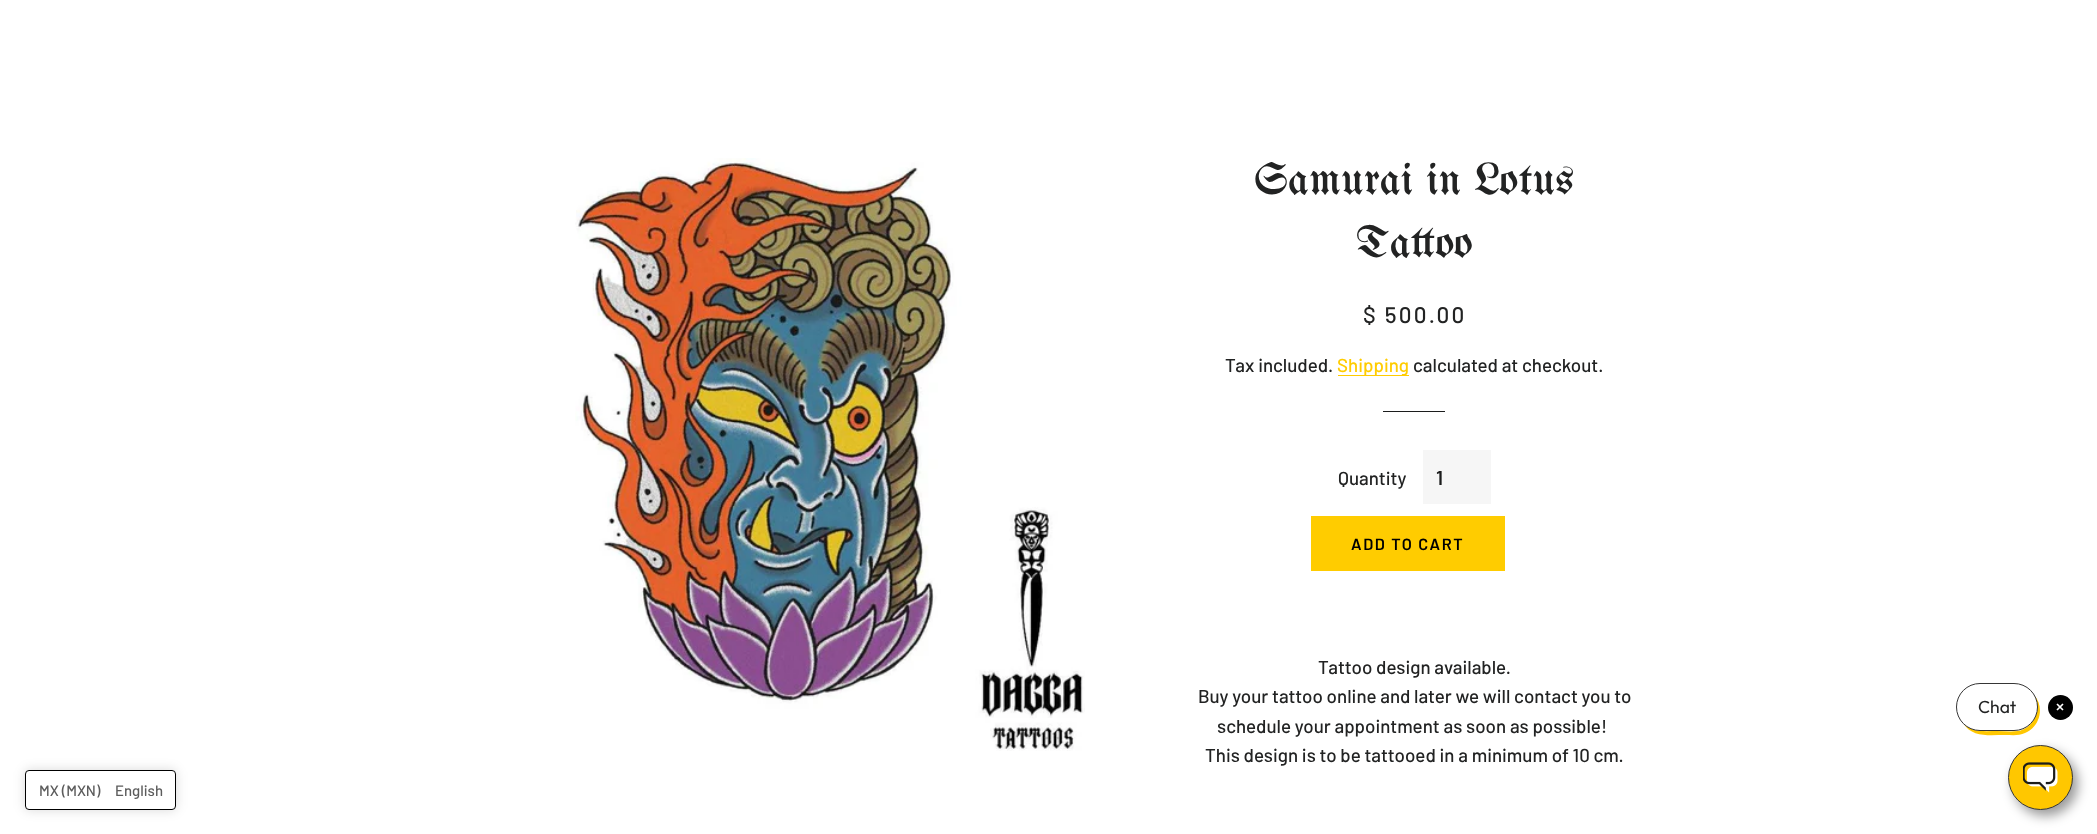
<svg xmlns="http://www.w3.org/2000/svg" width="2097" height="834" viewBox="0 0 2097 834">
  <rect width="100%" height="100%" fill="#fff"/>
  <image x="575" y="158" width="510" height="593" href="img/1.png"/>
  <path d="M1338 375h71v1H1338z" fill="#fc0"/>
  <path d="M1383 411h62v1H1383z" fill="#1c1d1d"/>
  <path d="M1423 450h68v54H1423z" fill="#f6f6f6"/>
  <path d="M1311 516h194v55H1311z" fill="#fc0"/>
  <rect x="2013" y="751" width="65" height="65" rx="32.5" fill="#00000066" filter="blur(6px)"/>
  <path d="M1963 723C1972 738 1990 735 2005 735C2012 735 2019 736 2025 733C2040 727 2045 707 2034 695C2042 709 2034 728 2018 731C2011 732 2004 731 1997 731C1985 731 1972 733 1963 723Z" fill="#ffc700"/>
  <rect x="1956.5" y="683.5" width="81" height="47" rx="23.5" fill="#fff" stroke="#363636"/>
  <circle cx="2060.5" cy="707.5" r="12.5" fill="#000"/>
  <path d="M2057 704L2063 710M2057 710L2063 704" fill="none" stroke="#fff" stroke-width="1.7"/>
  <circle cx="2040.5" cy="777.5" r="32" fill="#ffc700" stroke="#363636"/>
  <image x="2023" y="762" width="35" height="31" href="img/2.png"/>
  <rect x="25" y="770" width="151" height="40" rx="4" fill="#00000026" filter="blur(6px)"/>
  <rect x="25.5" y="770.5" width="150" height="39" rx="3.5" fill="#fff" stroke="#000"/>
  <g font-family="UnifrakturMaguntia" font-size="45" fill="#222323">
    <text x="1254" y="194">Samurai in Lotus</text>
    <text x="1356" y="257">Tattoo</text>
  </g>
  <text x="1363" y="323" font-family="Barlow" font-size="22.5" font-weight="500" letter-spacing="2.25" fill="#222323">$ 500.00</text>
  <text x="1225" y="372" font-family="Barlow" font-size="18.75" font-weight="500" fill="#222323">Tax included.</text>
  <text x="1337" y="372" font-family="Barlow" font-size="18.75" font-weight="500" fill="#fc0">Shipping</text>
  <g font-family="Barlow" font-size="18.75" font-weight="500" fill="#222323">
    <text x="1413" y="372">calculated at checkout.</text>
    <text x="1338" y="485">Quantity</text>
  </g>
  <text x="1436" y="485" font-family="Barlow" font-size="20" font-weight="600" letter-spacing="2" fill="#1c1d1d">1</text>
  <text x="1351" y="550" font-family="Barlow" font-size="16.25" font-weight="600" letter-spacing="1.6" fill="#000">ADD TO CART</text>
  <g font-family="Barlow" font-size="18.75" font-weight="500" fill="#222323">
    <text x="1318" y="674">Tattoo design available.</text>
    <text x="1198" y="703">Buy your tattoo online and later we will contact you to</text>
    <text x="1217" y="733">schedule your appointment as soon as possible!</text>
    <text x="1205" y="762">This design is to be tattooed in a minimum of 10 cm.</text>
  </g>
  <text x="1978" y="713" font-family="Outfit" font-size="17.5" fill="#222323">Chat</text>
  <g font-family="Barlow" font-size="15" font-weight="500" fill="#5c5c5c">
    <text x="39" y="796">MX (MXN)</text>
    <text x="115" y="796">English</text>
  </g>
</svg>
